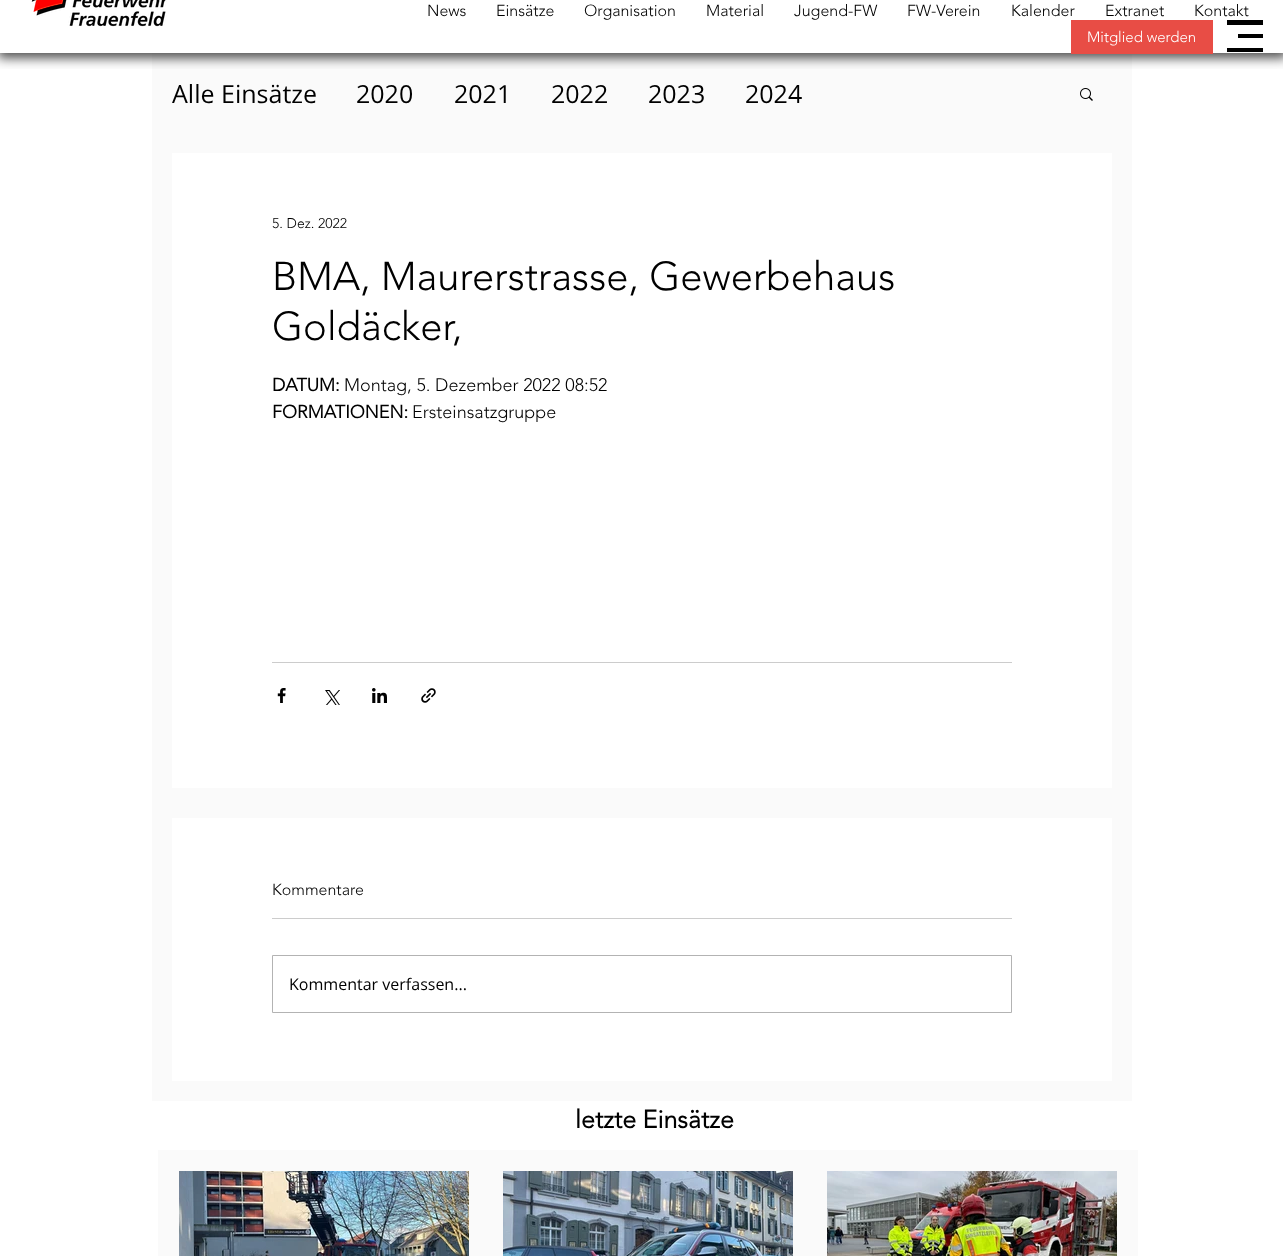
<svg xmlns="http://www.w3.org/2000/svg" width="1283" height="1256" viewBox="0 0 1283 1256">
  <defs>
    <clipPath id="clip1"><path d="M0 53h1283v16H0z"/></clipPath>
  </defs>
  <rect width="100%" height="100%" fill="#fff"/>
  <path d="M152 53h980v1048H152z" fill="#fafafa"/>
  <g clip-path="url(#clip1)">
    <path d="M-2 -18h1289v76H-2z" fill="#000000b3" filter="blur(6px)"/>
  </g>
  <image x="31" y="0" width="136" height="27" href="img/1.png"/>
  <path d="M1071 20h142v34H1071z" fill="#e84d45"/>
  <path d="M1227 20h36v5H1227z" fill="#000"/>
  <path d="M1238 34h25v4H1238z" fill="#000"/>
  <path d="M1227 48h36v4H1227z" fill="#000"/>
  <image x="1080" y="88" width="13" height="13" href="img/2.png"/>
  <path d="M172 153h940v635H172z" fill="#fff"/>
  <path d="M272 662h740v1H272z" fill="#ccc"/>
  <image x="277" y="688" width="9" height="15" href="img/3.png"/>
  <image x="325" y="690" width="15" height="15" href="img/4.png"/>
  <image x="372" y="688" width="15" height="15" href="img/5.png"/>
  <image x="421" y="688" width="15" height="15" href="img/6.png"/>
  <path d="M172 818h940v263H172z" fill="#fff"/>
  <path d="M272 918h740v1H272z" fill="#ccc"/>
  <path d="M272.5 955.5h739v57H272.5z" fill="none" stroke="#b3b3b3"/>
  <path d="M158 1150h980v106H158z" fill="#fafafa"/>
  <image x="179" y="1171" width="290" height="85" href="img/7.png"/>
  <image x="503" y="1171" width="290" height="85" href="img/8.png"/>
  <image x="827" y="1171" width="290" height="85" href="img/9.png"/>
  <g font-family="'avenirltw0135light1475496'" font-size="16" font-weight="300" fill="#000">
    <text x="427" y="16">News</text>
    <text x="496" y="16">Einsätze</text>
    <text x="584" y="16">Organisation</text>
    <text x="706" y="16">Material</text>
    <text x="794" y="16">Jugend-FW</text>
    <text x="907" y="16">FW-Verein</text>
    <text x="1011" y="16">Kalender</text>
    <text x="1105" y="16">Extranet</text>
    <text x="1194" y="16">Kontakt</text>
  </g>
  <text x="1087" y="42" font-family="'avenirltw0135light1475496'" font-size="15" font-weight="300" fill="#fff">Mitglied werden</text>
  <g font-family="Open Sans" font-size="25" fill="#000">
    <text x="172" y="103">Alle Einsätze</text>
    <text x="356" y="103">2020</text>
    <text x="454" y="103">2021</text>
    <text x="551" y="103">2022</text>
    <text x="648" y="103">2023</text>
    <text x="745" y="103">2024</text>
  </g>
  <text x="272" y="228" font-family="'avenirltw0135light1475496'" font-size="14" font-weight="300" fill="#000">5. Dez. 2022</text>
  <g font-family="'avenirltw0135light1475496'" font-size="40" font-weight="300" fill="#000">
    <text x="272" y="290">BMA, Maurerstrasse, Gewerbehaus</text>
    <text x="272" y="340">Goldäcker,</text>
  </g>
  <text x="272" y="391" font-family="'avenirltw0135light1475496'" font-size="18" font-weight="bold" fill="#000">DATUM:</text>
  <text x="344" y="391" font-family="'avenirltw0135light1475496'" font-size="18" font-weight="300" fill="#000">Montag, 5. Dezember 2022 08:52</text>
  <text x="272" y="418" font-family="'avenirltw0135light1475496'" font-size="18" font-weight="bold" fill="#000">FORMATIONEN:</text>
  <text x="412" y="418" font-family="'avenirltw0135light1475496'" font-size="18" font-weight="300" fill="#000">Ersteinsatzgruppe</text>
  <text x="272" y="895" font-family="'avenirltw0135light1475496'" font-size="16" font-weight="300" fill="#000">Kommentare</text>
  <text x="289" y="990" font-family="Open Sans" font-size="16" fill="#000">Kommentar verfassen...</text>
  <text x="575" y="1128" font-family="'avenirltw0135light1475496'" font-size="25" font-weight="bold" fill="#000">letzte Einsätze</text>
</svg>
